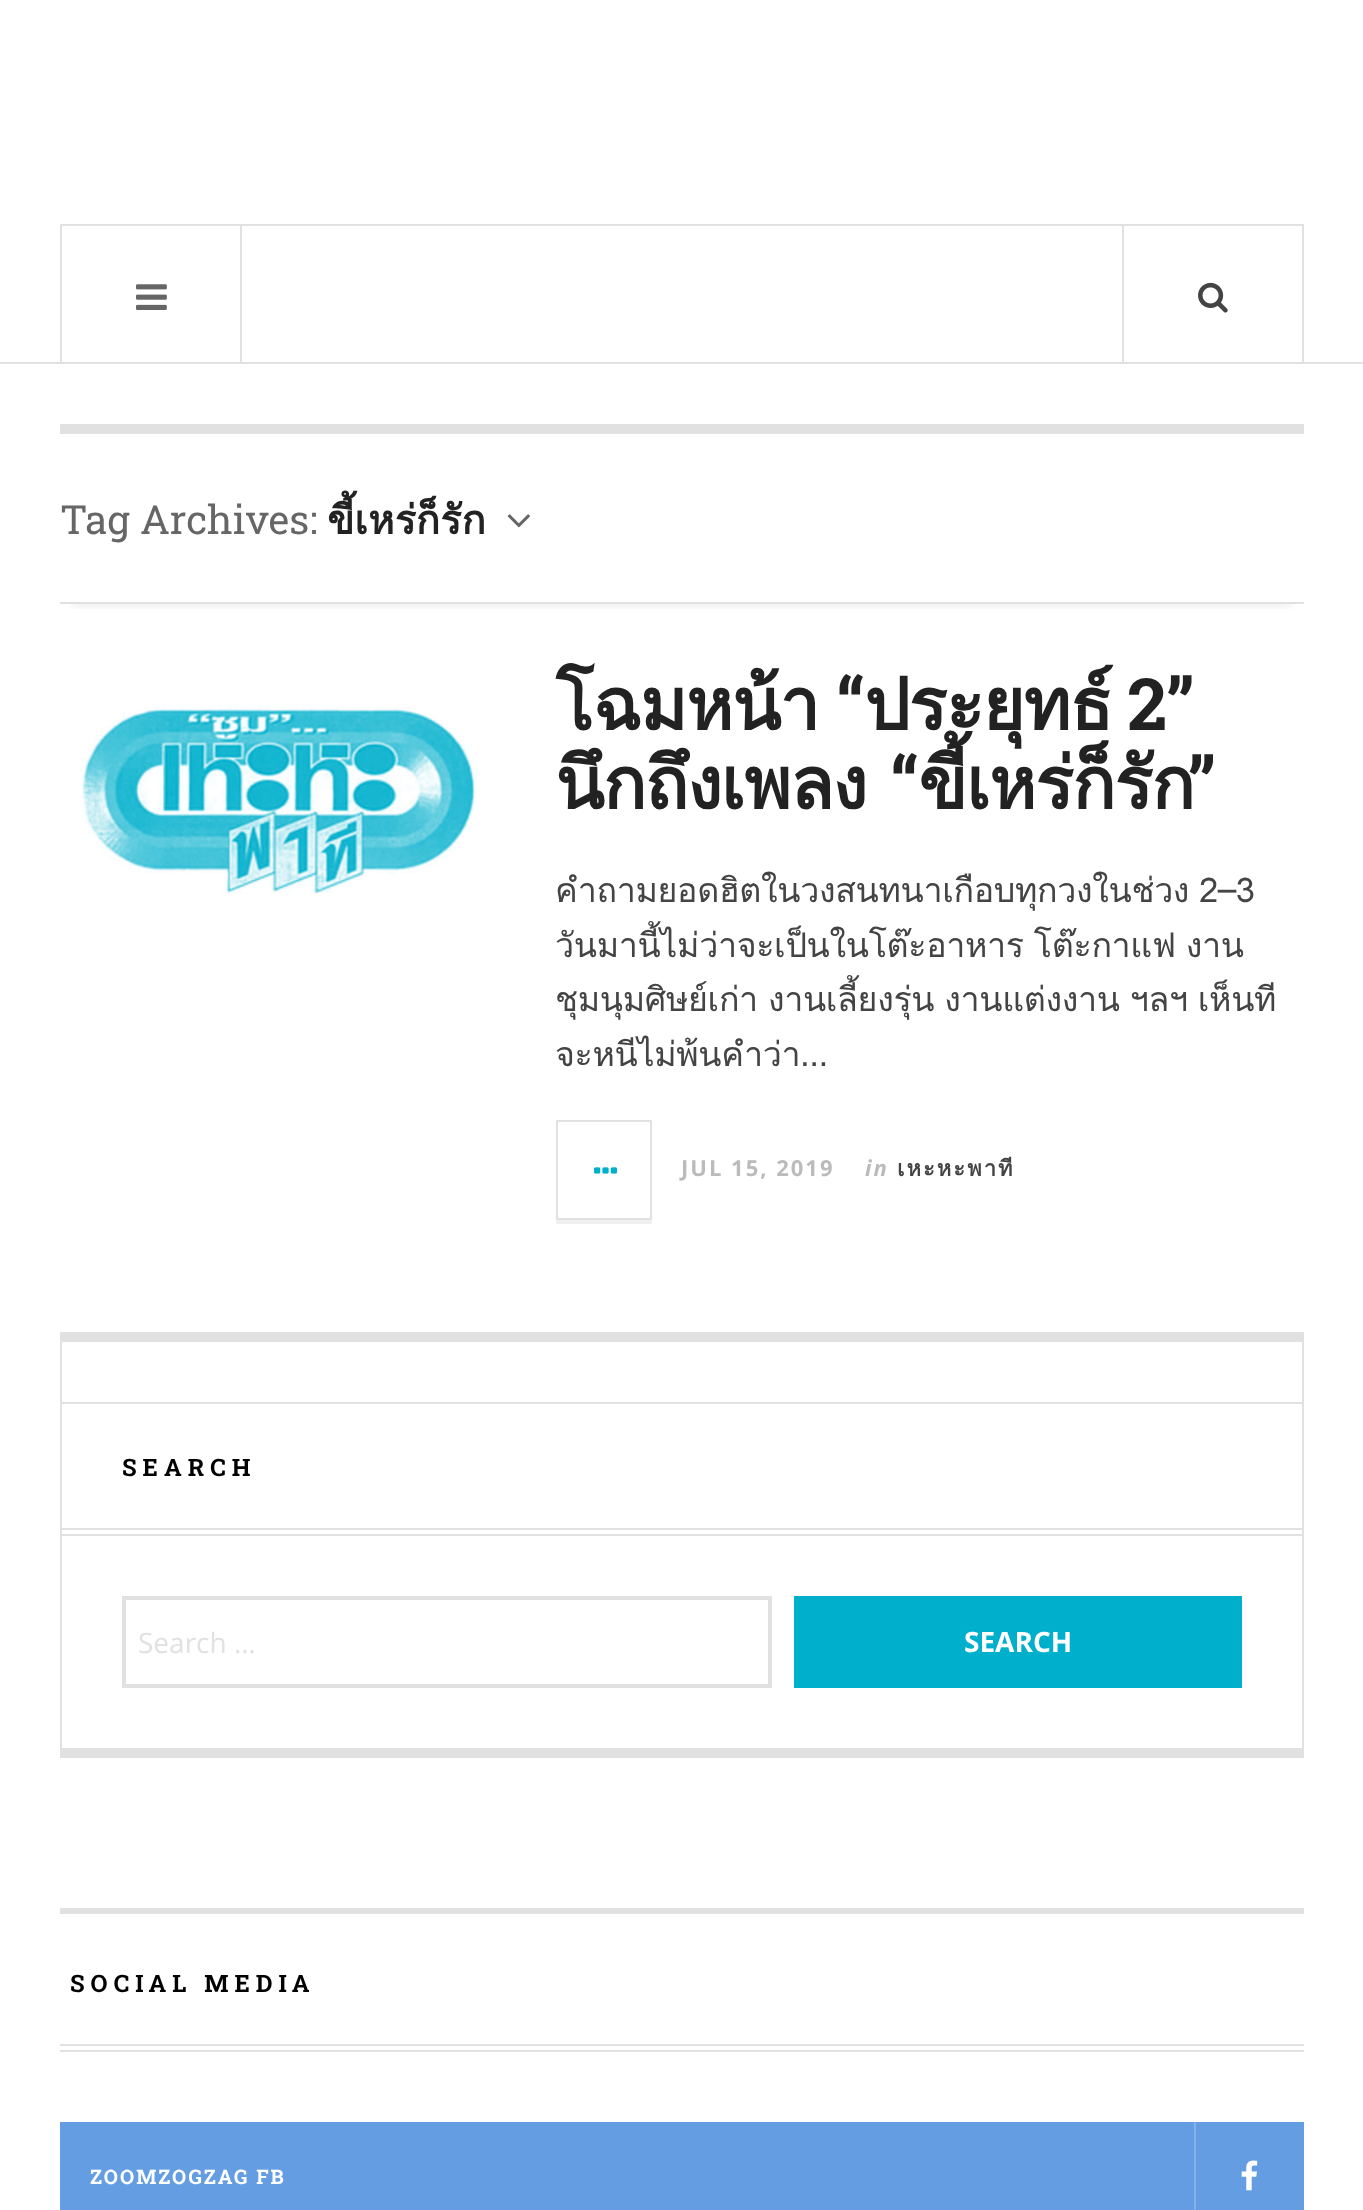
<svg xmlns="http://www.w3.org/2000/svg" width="1363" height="2210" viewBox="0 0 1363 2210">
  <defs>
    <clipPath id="clip1"><path d="M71 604h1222v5H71z"/></clipPath>
  </defs>
  <rect width="100%" height="100%" fill="#fff"/>
  <path d="M0 362h1363v2H0z" fill="#e1e1e1"/>
  <path d="M61 225h1242v138H61z" fill="none" stroke="#e1e1e1" stroke-width="2"/>
  <path d="M240 226h2v136H240z" fill="#e1e1e1"/>
  <image x="136" y="284" width="31" height="26" href="img/1.png"/>
  <path d="M1122 226h2v136H1122z" fill="#e1e1e1"/>
  <image x="1198" y="282" width="30" height="31" href="img/2.png"/>
  <path d="M60 424h1244v10H60z" fill="#e1e1e1"/>
  <path d="M60 1748h1244v10H60z" fill="#e1e1e1"/>
  <g clip-path="url(#clip1)">
    <path d="M72 458h1220v146H72z" fill="#0000001a" filter="blur(6px)"/>
  </g>
  <path d="M60 602h1244v2H60z" fill="#e1e1e1"/>
  <image x="507" y="514" width="23" height="14" href="img/3.png"/>
  <image x="81" y="706" width="397" height="188" href="img/4.png"/>
  <path d="M556 1220h96v4H556z" fill="#f0f0f0"/>
  <path d="M557 1121h94v98H557z" fill="none" stroke="#e1e1e1" stroke-width="2"/>
  <image x="594" y="1167" width="24" height="7" href="img/5.png"/>
  <path d="M62 1332h1240v10H62z" fill="#e1e1e1"/>
  <path d="M1302 1332h2v416H1302z" fill="#e1e1e1"/>
  <path d="M60 1332h2v416H60z" fill="#e1e1e1"/>
  <path d="M62 1402h1240v2H62z" fill="#e1e1e1"/>
  <path d="M62 1528h1240v2H62z" fill="#e1e1e1"/>
  <path d="M62 1534h1240v2H62z" fill="#e1e1e1"/>
  <path d="M124 1598h646v88H124z" fill="none" stroke="#e1e1e1" stroke-width="4"/>
  <path d="M794 1596h448v92H794z" fill="#00afcc"/>
  <path d="M60 1908h1244v6H60z" fill="#e1e1e1"/>
  <path d="M60 2044h1244v2H60z" fill="#e1e1e1"/>
  <path d="M60 2050h1244v2H60z" fill="#e1e1e1"/>
  <path d="M60 2122h1244v88H60z" fill="#659de3"/>
  <path d="M1194 2122h2v88H1194z" fill="#84b1e9"/>
  <image x="1241" y="2160" width="17" height="31" href="img/6.png"/>
  <text x="60" y="534" font-family="Roboto Slab" font-size="40" fill="#666">Tag Archives:</text>
  <text x="327" y="534" font-family="Loma" font-size="40" font-weight="bold" fill="#222">ขี้เหร่ก็รัก</text>
  <text x="555" y="730" font-family="Loma" font-size="72" font-weight="bold" letter-spacing="-1.5" fill="#222">โฉมหน้า</text>
  <text x="836" y="730" font-family="Roboto Slab" font-size="72" font-weight="bold" letter-spacing="-1.5" fill="#222">“</text>
  <text x="864" y="730" font-family="Loma" font-size="72" font-weight="bold" letter-spacing="-1.5" fill="#222">ประยุทธ์</text>
  <text x="1127" y="730" font-family="Roboto Slab" font-size="72" font-weight="bold" letter-spacing="-1.5" fill="#222">2”</text>
  <text x="555" y="809" font-family="Loma" font-size="72" font-weight="bold" letter-spacing="-1.5" fill="#222">นึกถึงเพลง</text>
  <text x="890" y="809" font-family="Roboto Slab" font-size="72" font-weight="bold" letter-spacing="-1.5" fill="#222">“</text>
  <text x="918" y="809" font-family="Loma" font-size="72" font-weight="bold" letter-spacing="-1.5" fill="#222">ขี้เหร่ก็รัก</text>
  <text x="1187" y="809" font-family="Roboto Slab" font-size="72" font-weight="bold" letter-spacing="-1.5" fill="#222">”</text>
  <g font-family="Loma" font-size="34" letter-spacing="-0.35" fill="#444">
    <text x="555" y="902" word-spacing="-1">คำถามยอดฮิตในวงสนทนาเกือบทุกวงในช่วง 2–3</text>
    <text x="555" y="957" word-spacing="-1">วันมานี้ไม่ว่าจะเป็นในโต๊ะอาหาร โต๊ะกาแฟ งาน</text>
    <text x="555" y="1011" word-spacing="-1">ชุมนุมศิษย์เก่า งานเลี้ยงรุ่น งานแต่งงาน ฯลฯ เห็นที</text>
    <text x="555" y="1066">จะหนีไม่พ้นคำว่า…</text>
  </g>
  <text x="681" y="1176" font-family="Open Sans" font-size="22" font-weight="bold" letter-spacing="2" fill="#bbb">JUL 15, 2019</text>
  <text x="865" y="1176" font-family="Open Sans" font-size="22" font-weight="bold" font-style="italic" letter-spacing="2" fill="#bbb">in</text>
  <text x="897" y="1176" font-family="Loma" font-size="22" font-weight="bold" letter-spacing="2" fill="#444">เหะหะพาที</text>
  <text x="122" y="1476" font-family="Roboto Slab" font-size="24" font-weight="bold" letter-spacing="6" fill="#000">SEARCH</text>
  <text x="138" y="1653" font-family="Open Sans" font-size="28" fill="#e1e1e1">Search …</text>
  <text x="964" y="1652" font-family="Open Sans" font-size="28" font-weight="bold" fill="#fff">SEARCH</text>
  <text x="70" y="1992" font-family="Roboto Slab" font-size="24" font-weight="bold" letter-spacing="6" fill="#000">SOCIAL MEDIA</text>
  <text x="90" y="2184" font-family="Roboto Slab" font-size="20" font-weight="bold" letter-spacing="2" fill="#fff">ZOOMZOGZAG FB</text>
</svg>
